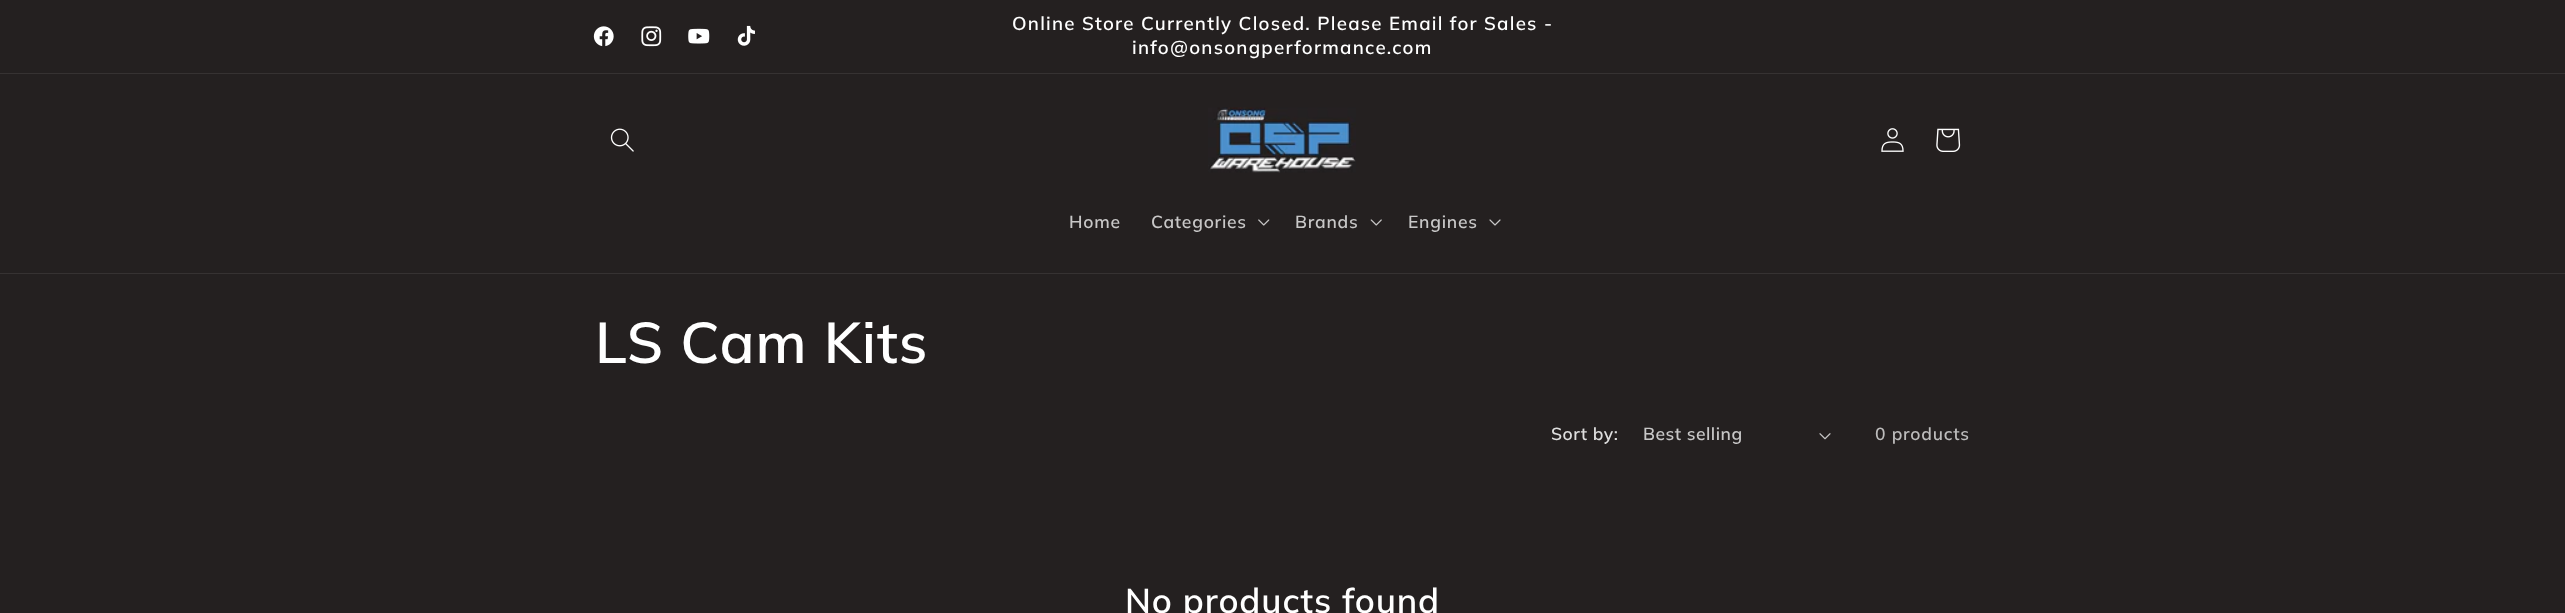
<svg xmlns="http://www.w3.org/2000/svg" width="2565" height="613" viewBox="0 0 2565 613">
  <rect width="100%" height="100%" fill="#242020"/>
  <path d="M0 73h2565v1H0z" fill="#363232"/>
  <image x="593" y="26" width="21" height="21" href="img/1.png"/>
  <image x="641" y="26" width="21" height="21" href="img/2.png"/>
  <image x="688" y="28" width="22" height="16" href="img/3.png"/>
  <image x="737" y="25" width="18" height="21" href="img/4.png"/>
  <path d="M0 273h2565v1H0z" fill="#363232"/>
  <image x="610" y="128" width="24" height="24" href="img/5.png"/>
  <image x="1208" y="107" width="148" height="66" href="img/6.png"/>
  <image x="1881" y="128" width="23" height="24" href="img/7.png"/>
  <image x="1936" y="128" width="25" height="24" href="img/8.png"/>
  <image x="1258" y="219" width="12" height="7" href="img/9.png"/>
  <image x="1370" y="219" width="12" height="7" href="img/10.png"/>
  <image x="1489" y="219" width="12" height="7" href="img/11.png"/>
  <image x="1819" y="433" width="12" height="7" href="img/12.png"/>
  <g font-family="Muli" font-size="18.7" font-weight="600" letter-spacing="1.25" fill="#fff">
    <text x="1012" y="30">Online Store Currently Closed. Please Email for Sales -</text>
    <text x="1132" y="54">info@onsongperformance.com</text>
  </g>
  <g font-family="Muli" font-size="17.5" font-weight="600" letter-spacing="0.75" fill="#c8c7c7">
    <text x="1069" y="228">Home</text>
    <text x="1151" y="228">Categories</text>
    <text x="1295" y="228">Brands</text>
    <text x="1408" y="228">Engines</text>
  </g>
  <text x="595" y="363" font-family="Muli" font-size="57.5" font-weight="600" letter-spacing="0.9" fill="#fff">LS Cam Kits</text>
  <text x="1551" y="440" font-family="Muli" font-size="17.5" font-weight="600" letter-spacing="0.5" fill="#dedede">Sort by:</text>
  <text x="1643" y="440" font-family="Muli" font-size="17.5" font-weight="600" letter-spacing="0.5" fill="#c8c7c7">Best selling</text>
  <text x="1875" y="440" font-family="Muli" font-size="17.5" font-weight="600" letter-spacing="0.75" fill="#bdbcbc">0 products</text>
  <text x="1125" y="613" font-family="Muli" font-size="34.5" font-weight="600" letter-spacing="0.9" fill="#fff">No products found</text>
</svg>
